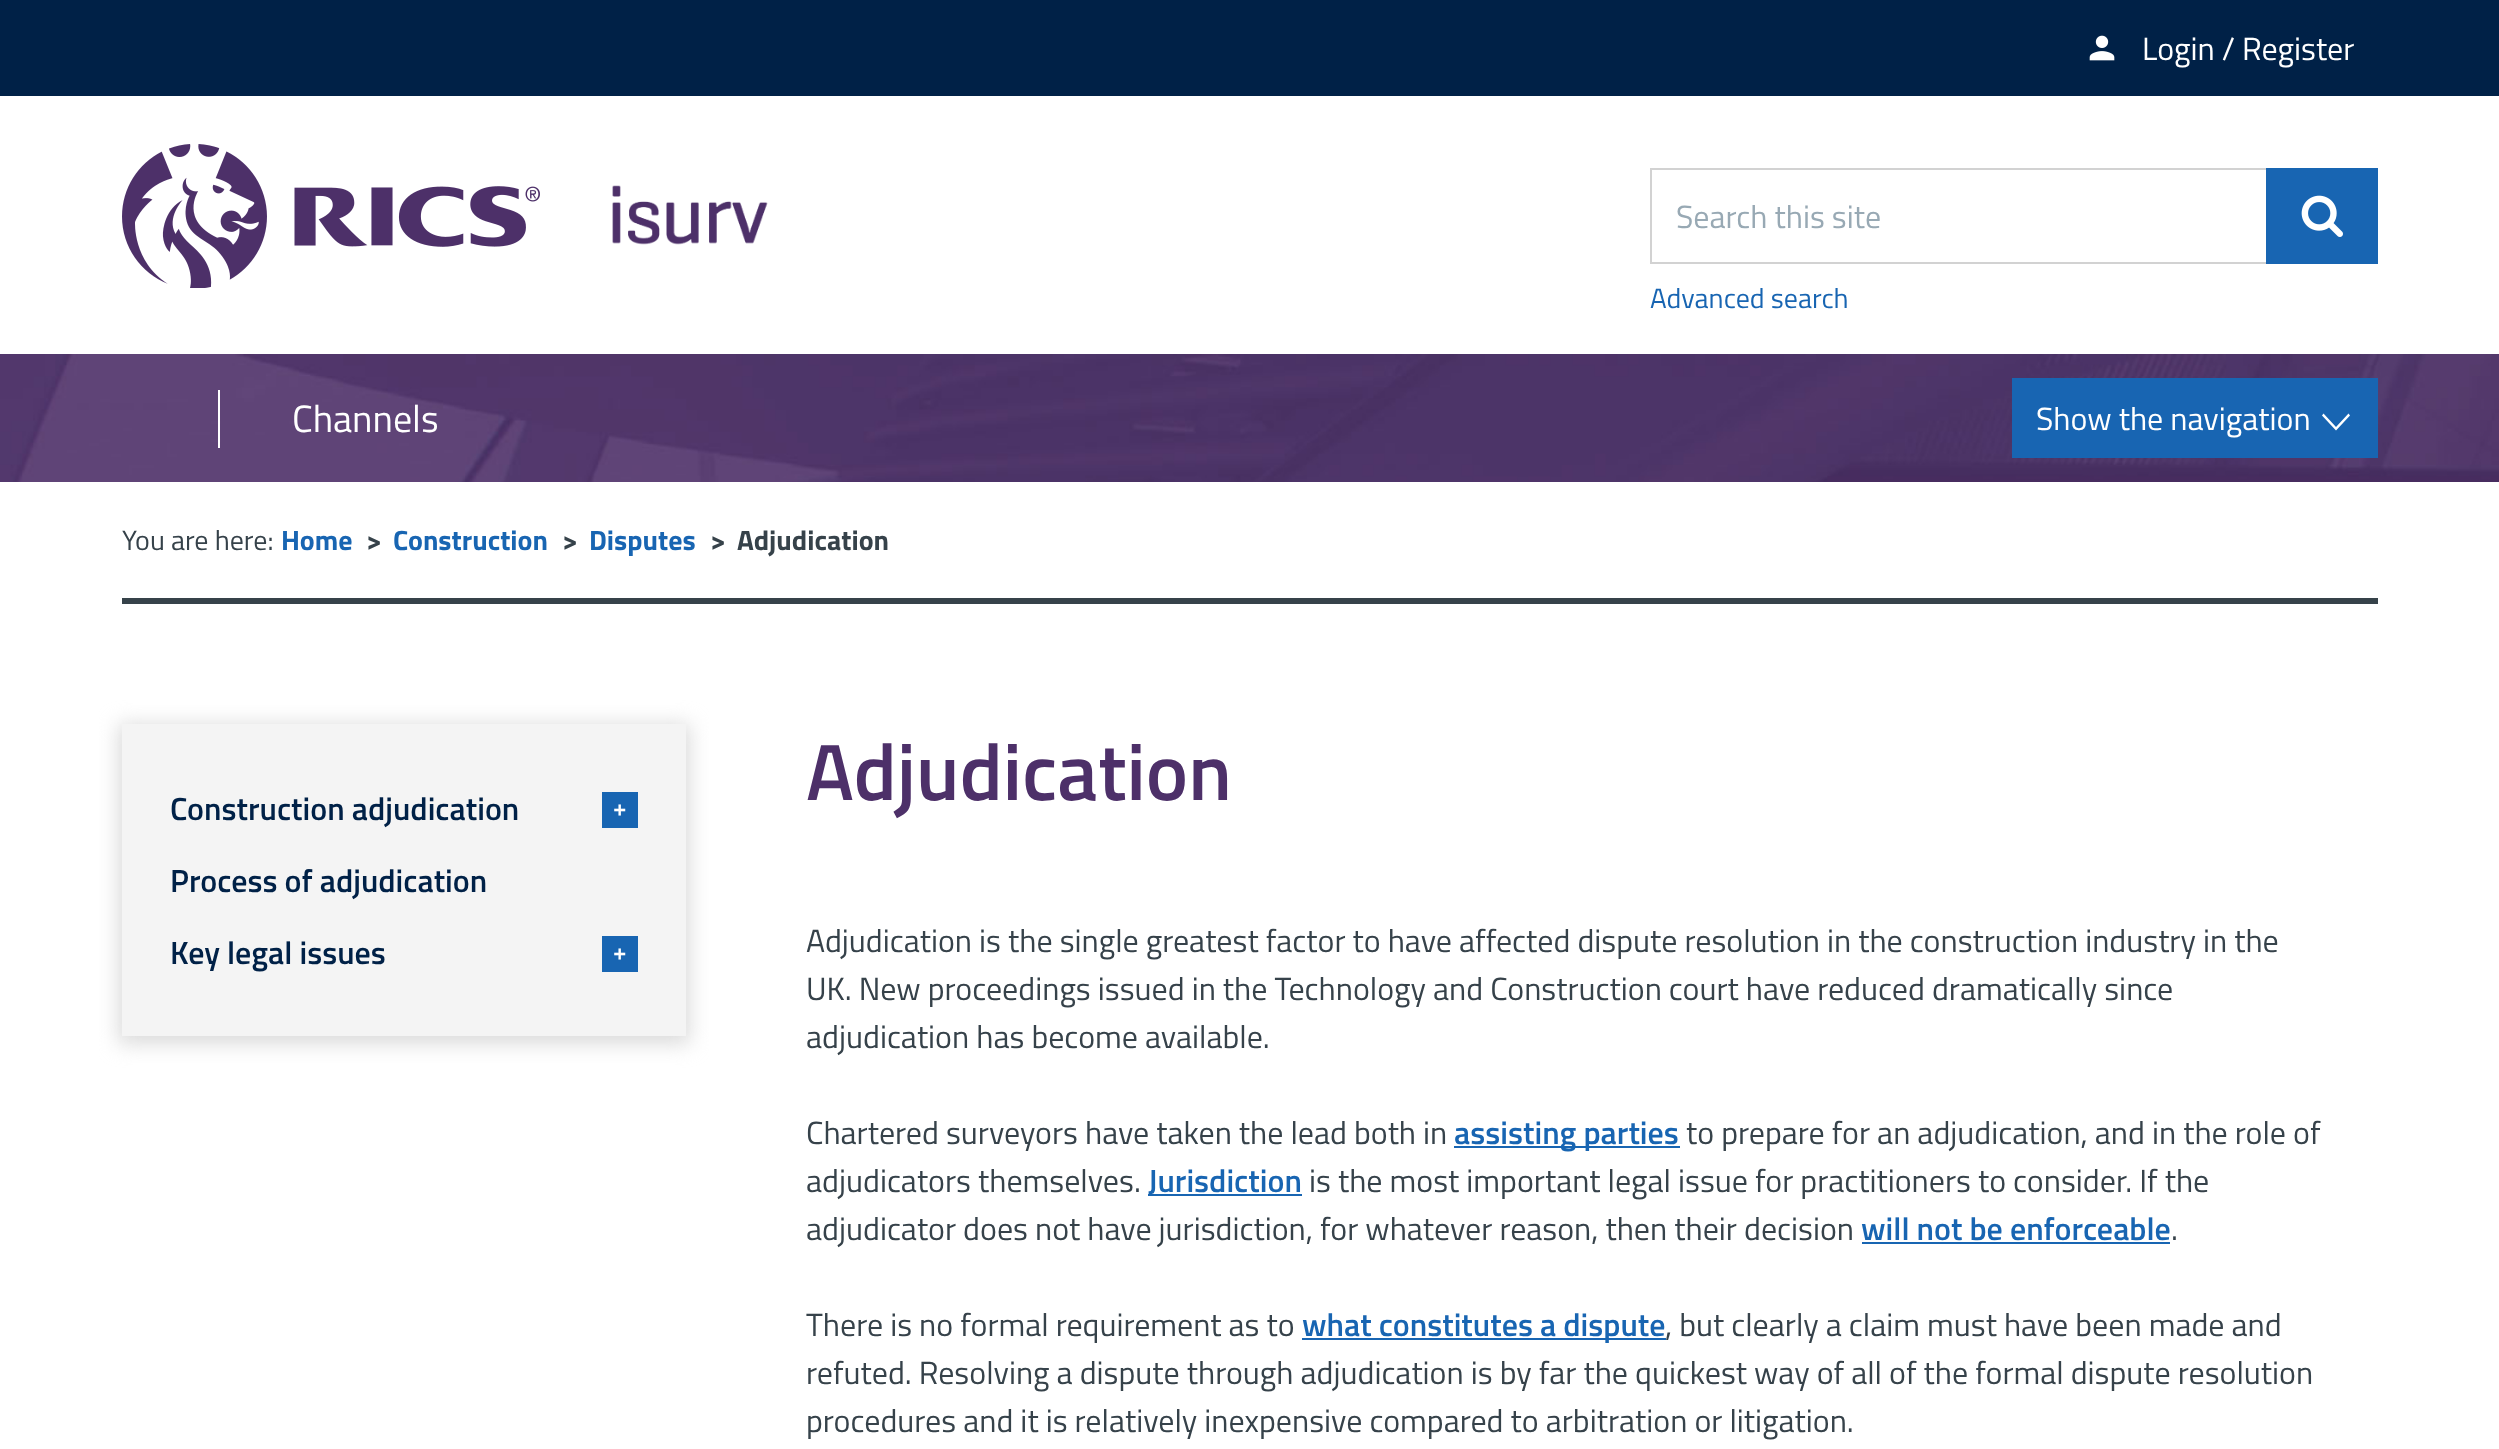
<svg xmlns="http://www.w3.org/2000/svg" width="2499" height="1449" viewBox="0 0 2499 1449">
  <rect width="100%" height="100%" fill="#fff"/>
  <path d="M0 0h2499v96H0z" fill="#002147"/>
  <image x="2089" y="35" width="26" height="26" href="img/1.png"/>
  <image x="122" y="144" width="418" height="144" href="img/2.png"/>
  <image x="612" y="185" width="156" height="60" href="img/3.png"/>
  <path d="M1651 169h726v94H1651z" fill="none" stroke="#d2d2d2" stroke-width="2"/>
  <path d="M2266 168h112v96H2266z" fill="#1865b2"/>
  <image x="2301" y="195" width="42" height="42" href="img/4.png"/>
  <image x="0" y="354" width="2499" height="128" href="img/5.png"/>
  <path d="M218 390h2v58H218z" fill="#fff"/>
  <path d="M2012 378h366v80H2012z" fill="#1865b2"/>
  <path d="M2348.5 413.5L2350 415.5L2336 430.5L2322 415.5L2323.5 413.5L2336 427" fill="#fff"/>
  <path d="M122 598h2256v6H122z" fill="#36424a"/>
  <path d="M118 724h572v320H118z" fill="#dbdbdb" filter="blur(10px)"/>
  <path d="M122 724h564v312H122z" fill="#f4f4f4"/>
  <path d="M602 792h36v36H602z" fill="#1865b2"/>
  <path d="M602 936h36v36H602z" fill="#1865b2"/>
  <path d="M1454 1146h226v2H1454z" fill="#1865b2"/>
  <path d="M1148 1194h154v2H1148z" fill="#1865b2"/>
  <path d="M1862 1242h308v2H1862z" fill="#1865b2"/>
  <path d="M1302 1338h364v2H1302z" fill="#1865b2"/>
  <text x="2142" y="60" font-family="Titillium Web" font-size="32" fill="#fff">Login / Register</text>
  <text x="1676" y="228" font-family="Titillium Web" font-size="32" fill="#98a9b4">Search this site</text>
  <text x="1650" y="308" font-family="Titillium Web" font-size="28" fill="#1865b2">Advanced search</text>
  <text x="292" y="432" font-family="Titillium Web" font-size="38" fill="#fff">Channels</text>
  <text x="2036" y="430" font-family="Titillium Web" font-size="32" fill="#fff">Show the navigation</text>
  <text x="122" y="550" font-family="Titillium Web" font-size="28" fill="#36424a">You are here:</text>
  <text x="281" y="550" font-family="Titillium Web" font-size="28" font-weight="bold" fill="#1865b2">Home</text>
  <text x="366" y="550" font-family="Titillium Web" font-size="28" font-weight="bold" fill="#36424a">&gt;</text>
  <text x="393" y="550" font-family="Titillium Web" font-size="28" font-weight="bold" fill="#1865b2">Construction</text>
  <text x="562" y="550" font-family="Titillium Web" font-size="28" font-weight="bold" fill="#36424a">&gt;</text>
  <text x="589" y="550" font-family="Titillium Web" font-size="28" font-weight="bold" fill="#1865b2">Disputes</text>
  <g font-family="Titillium Web" font-size="28" font-weight="bold" fill="#36424a">
    <text x="710" y="550">&gt;</text>
    <text x="737" y="550">Adjudication</text>
  </g>
  <text x="170" y="820" font-family="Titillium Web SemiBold" font-size="32" font-weight="600" fill="#002147">Construction adjudication</text>
  <text x="613" y="816" font-family="Titillium Web SemiBold" font-size="24" font-weight="600" fill="#fff">+</text>
  <g font-family="Titillium Web SemiBold" font-size="32" font-weight="600" fill="#002147">
    <text x="170" y="892">Process of adjudication</text>
    <text x="170" y="964">Key legal issues</text>
  </g>
  <text x="613" y="960" font-family="Titillium Web SemiBold" font-size="24" font-weight="600" fill="#fff">+</text>
  <text x="806" y="800" font-family="Titillium Web SemiBold" font-size="80" font-weight="600" fill="#4d3069">Adjudication</text>
  <g font-family="Titillium Web" font-size="32" fill="#36424a">
    <text x="806" y="952">Adjudication is the single greatest factor to have affected dispute resolution in the construction industry in the</text>
    <text x="806" y="1000">UK. New proceedings issued in the Technology and Construction court have reduced dramatically since</text>
    <text x="806" y="1048">adjudication has become available.</text>
    <text x="806" y="1144">Chartered surveyors have taken the lead both in</text>
  </g>
  <text x="1454" y="1144" font-family="Titillium Web SemiBold" font-size="32" font-weight="600" fill="#1865b2">assisting parties</text>
  <g font-family="Titillium Web" font-size="32" fill="#36424a">
    <text x="1686" y="1144">to prepare for an adjudication, and in the role of</text>
    <text x="806" y="1192">adjudicators themselves.</text>
  </g>
  <text x="1148" y="1192" font-family="Titillium Web SemiBold" font-size="32" font-weight="600" fill="#1865b2">Jurisdiction</text>
  <g font-family="Titillium Web" font-size="32" fill="#36424a">
    <text x="1309" y="1192">is the most important legal issue for practitioners to consider. If the</text>
    <text x="806" y="1240">adjudicator does not have jurisdiction, for whatever reason, then their decision</text>
  </g>
  <text x="1861" y="1240" font-family="Titillium Web SemiBold" font-size="32" font-weight="600" fill="#1865b2">will not be enforceable</text>
  <g font-family="Titillium Web" font-size="32" fill="#36424a">
    <text x="2171" y="1240">.</text>
    <text x="806" y="1336">There is no formal requirement as to</text>
  </g>
  <text x="1302" y="1336" font-family="Titillium Web SemiBold" font-size="32" font-weight="600" fill="#1865b2">what constitutes a dispute</text>
  <g font-family="Titillium Web" font-size="32" fill="#36424a">
    <text x="1665" y="1336">, but clearly a claim must have been made and</text>
    <text x="806" y="1384">refuted. Resolving a dispute through adjudication is by far the quickest way of all of the formal dispute resolution</text>
    <text x="806" y="1432">procedures and it is relatively inexpensive compared to arbitration or litigation.</text>
  </g>
</svg>
